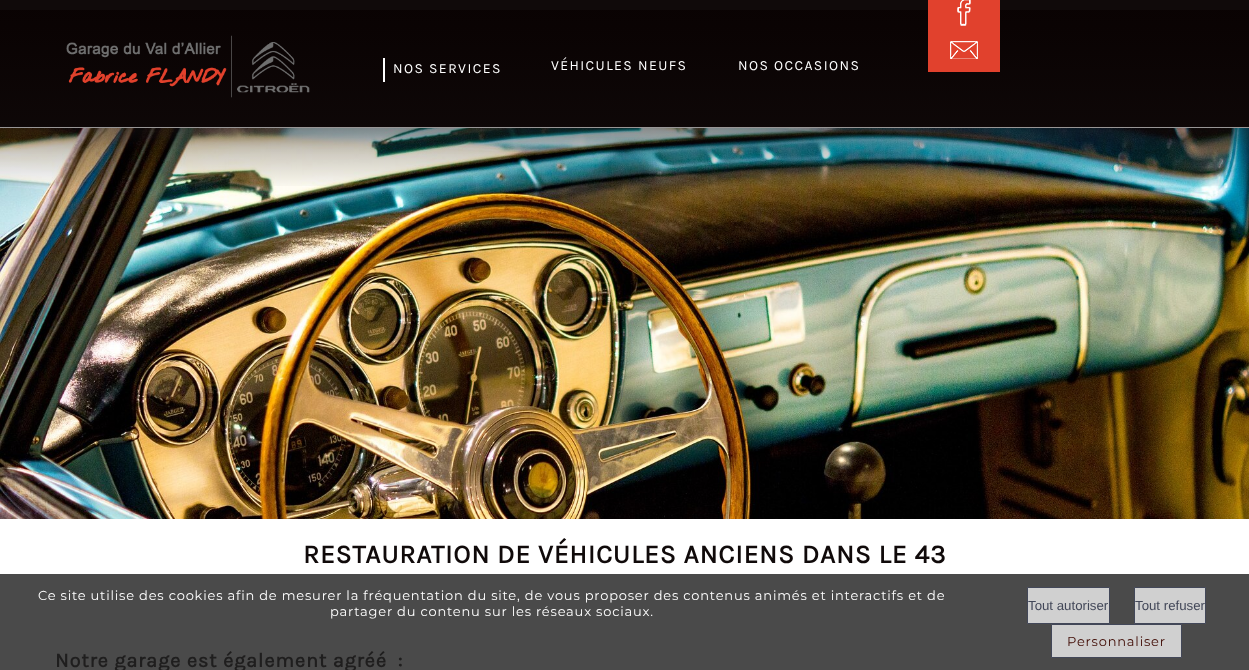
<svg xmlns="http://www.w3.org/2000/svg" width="1249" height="670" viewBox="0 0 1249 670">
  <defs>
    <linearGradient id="g1" gradientUnits="userSpaceOnUse" x1="625" y1="10" x2="625" y2="190"><stop offset="0" stop-color="#090202" stop-opacity="0.95"/><stop offset="1" stop-color="#090202" stop-opacity="0"/></linearGradient>
  </defs>
  <rect width="100%" height="100%" fill="#fff"/>
  <path d="M0 574h1249v96H0z" fill="#4a4a4a"/>
  <image x="0" y="128" width="1249" height="391" href="img/4.png"/>
  <path d="M0 10h1249v128H0z" fill="#32323240" filter="blur(7.5px)"/>
  <path d="M0 0h1249v127H0z" fill="#100a0a"/>
  <path d="M0 127h1249v1H0z" fill="#dedede"/>
  <path d="M0 10h1249v176H0z" fill="url(#g1)"/>
  <image x="66" y="35" width="244" height="63" href="img/1.png"/>
  <path d="M383 58h2v24H383z" fill="#fff"/>
  <path d="M928 0h72v72H928z" fill="#e1412d"/>
  <image x="957" y="0" width="14" height="26" href="img/2.png"/>
  <image x="950" y="41" width="28" height="18" href="img/3.png"/>
  <path d="M1027.5 587.5h82v36H1027.5z" fill="#d0d0d0" stroke="#424758"/>
  <path d="M1134.5 587.5h71v36H1134.5z" fill="#d0d0d0" stroke="#424758"/>
  <path d="M1051.5 624.5h130v33H1051.5z" fill="#d0d0d0" stroke="#424758"/>
  <g font-family="Karla" font-size="14" letter-spacing="1.4" fill="#fff">
    <text x="393" y="73">NOS SERVICES</text>
    <text x="551" y="70">VÉHICULES NEUFS</text>
    <text x="738" y="70">NOS OCCASIONS</text>
  </g>
  <text x="303" y="563" font-family="Karla" font-size="26.4" font-weight="bold" letter-spacing="0.8" fill="#100a0a">RESTAURATION DE VÉHICULES ANCIENS DANS LE 43</text>
  <text x="55" y="667" font-family="Karla" font-size="20" font-weight="bold" letter-spacing="0.8" fill="#1f1e1e" xml:space="preserve">Notre garage est également agréé  :</text>
  <g font-family="Montserrat" font-size="13" letter-spacing="0.8" fill="#fff">
    <text x="38" y="600">Ce site utilise des cookies afin de mesurer la fréquentation du site, de vous proposer des contenus animés et interactifs et de</text>
    <text x="330" y="616">partager du contenu sur les réseaux sociaux.</text>
  </g>
  <g font-family="Liberation Sans" font-size="13.25" fill="#424758">
    <text x="1028" y="610">Tout autoriser</text>
    <text x="1135" y="610">Tout refuser</text>
  </g>
  <text x="1067" y="646" font-family="Montserrat" font-size="13" letter-spacing="0.8" fill="#400b04">Personnaliser</text>
</svg>
